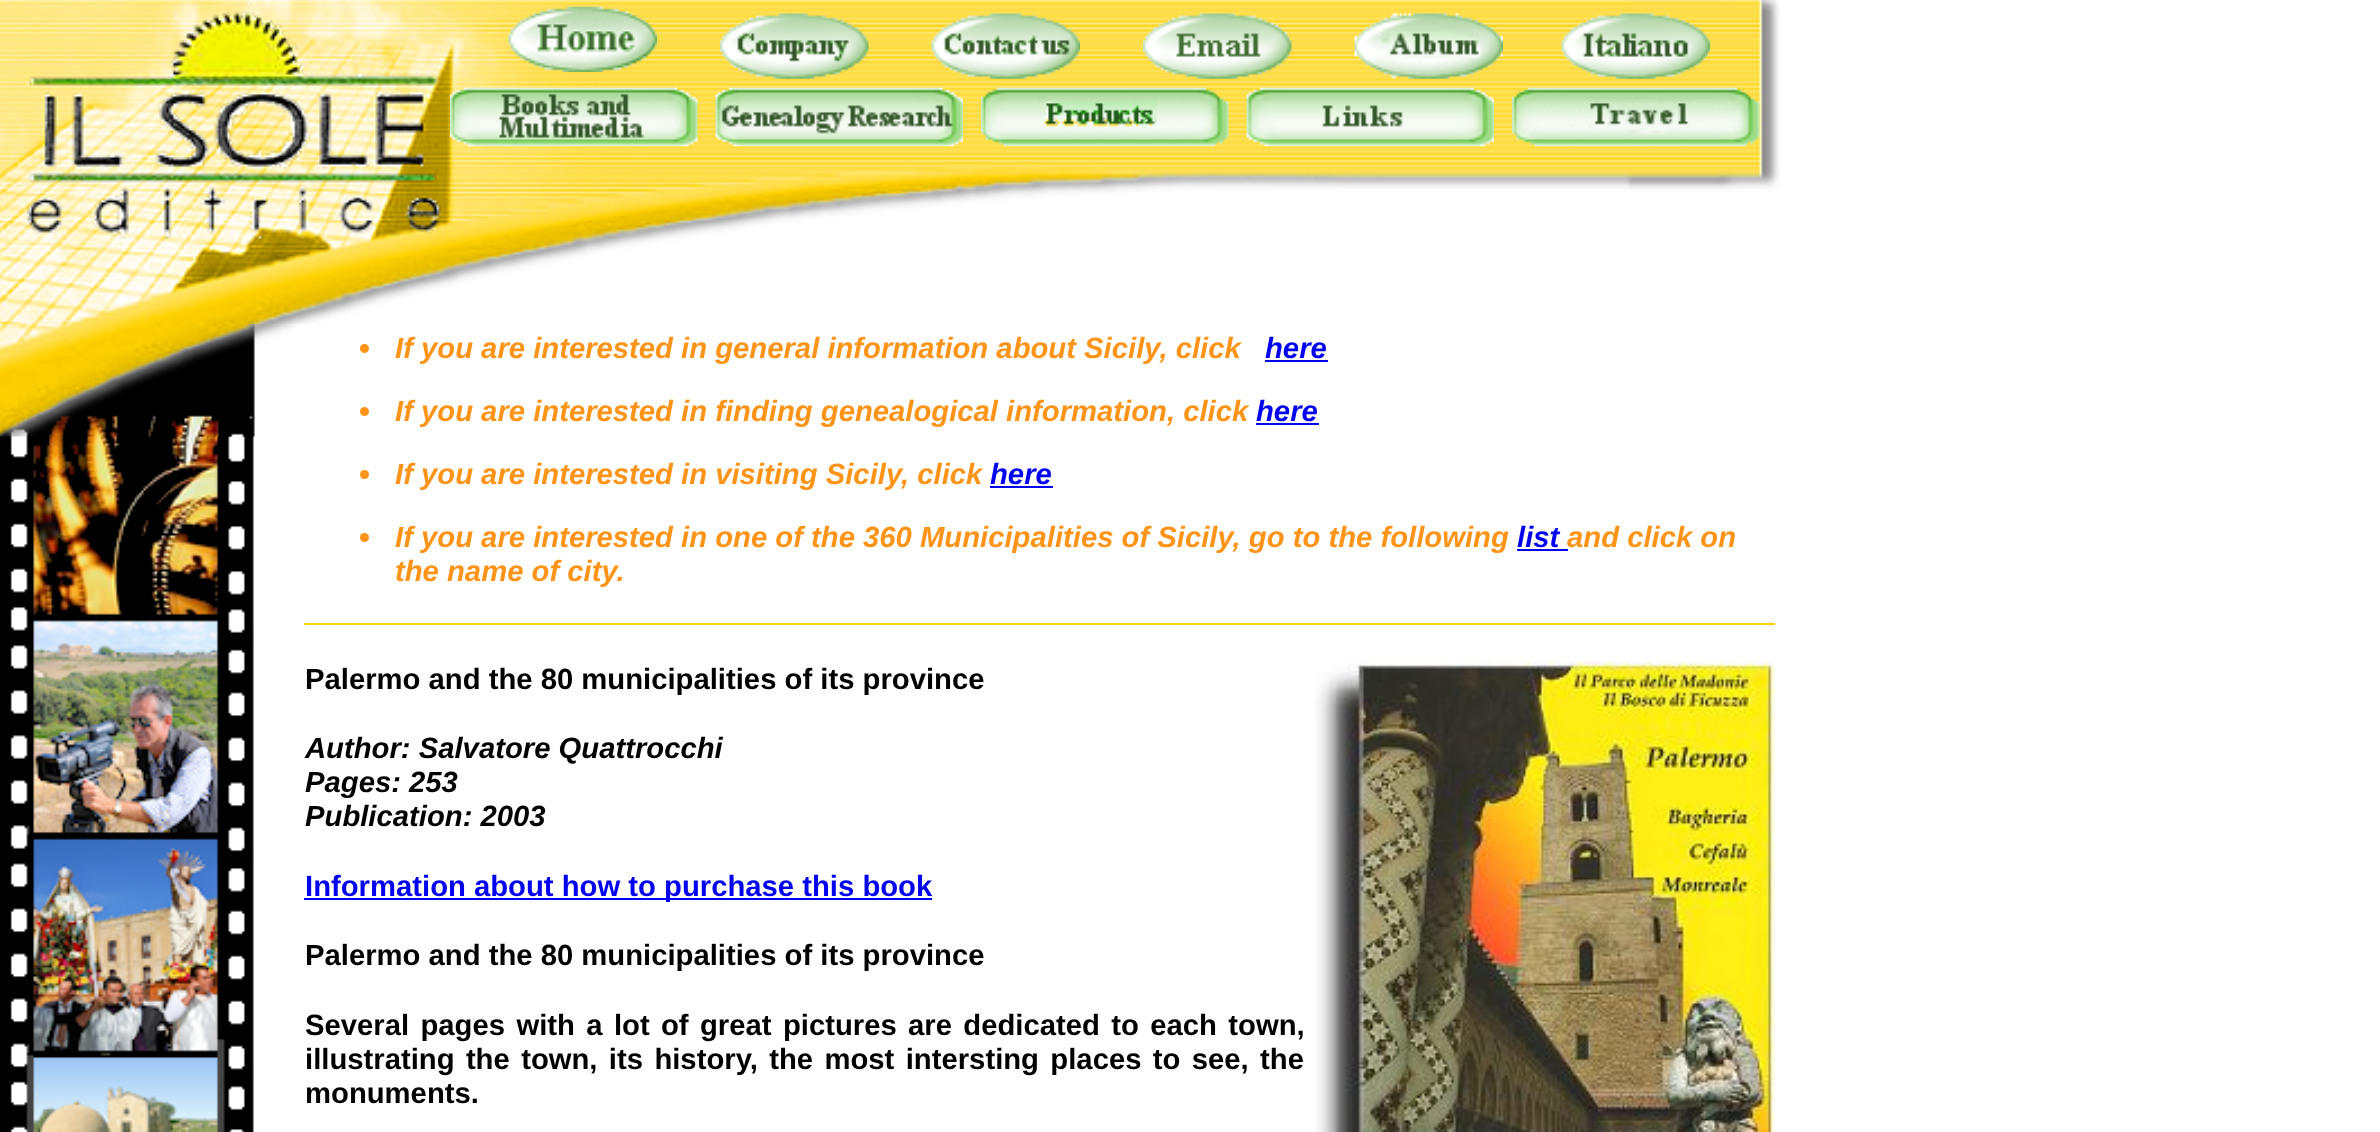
<svg xmlns="http://www.w3.org/2000/svg" width="2380" height="1132" viewBox="0 0 2380 1132">
  <rect width="100%" height="100%" fill="#fff"/>
  <image x="0" y="0" width="1780" height="324" href="img/1.png"/>
  <image x="508" y="6" width="149" height="66" href="img/2.png"/>
  <image x="720" y="13" width="149" height="66" href="img/3.png"/>
  <image x="931" y="13" width="149" height="66" href="img/4.png"/>
  <image x="1143" y="13" width="149" height="66" href="img/5.png"/>
  <image x="1354" y="13" width="149" height="66" href="img/6.png"/>
  <image x="1561" y="13" width="149" height="66" href="img/7.png"/>
  <image x="450" y="87" width="248" height="60" href="img/8.png"/>
  <image x="715" y="87" width="248" height="60" href="img/9.png"/>
  <image x="981" y="87" width="248" height="60" href="img/10.png"/>
  <image x="1246" y="87" width="248" height="60" href="img/11.png"/>
  <image x="1512" y="87" width="248" height="60" href="img/12.png"/>
  <image x="0" y="436" width="255" height="696" href="img/13.png"/>
  <image x="0" y="324" width="295" height="113" href="img/14.png"/>
  <circle cx="364.5" cy="348.5" r="4.5" fill="#ff9418"/>
  <path d="M1265 360h63v2H1265z" fill="#00e"/>
  <circle cx="364.5" cy="411.5" r="4.5" fill="#ff9418"/>
  <path d="M1256 423h63v2H1256z" fill="#00e"/>
  <circle cx="364.5" cy="474.5" r="4.5" fill="#ff9418"/>
  <path d="M990 486h63v2H990z" fill="#00e"/>
  <circle cx="364.5" cy="537.5" r="4.5" fill="#ff9418"/>
  <path d="M1517 549h51v2H1517z" fill="#00e"/>
  <path d="M304 623h1471v2H304z" fill="#ffd201"/>
  <image x="1315" y="661" width="461" height="471" href="img/15.png"/>
  <path d="M304 898h628v2H304z" fill="#00e"/>
  <text x="395" y="358" font-family="Liberation Sans" font-size="29.25" font-weight="bold" font-style="italic" fill="#ff9418">If you are interested in general information about Sicily, click</text>
  <text x="1265" y="358" font-family="Liberation Sans" font-size="29.25" font-weight="bold" font-style="italic" fill="#00e">here</text>
  <text x="395" y="421" font-family="Liberation Sans" font-size="29.25" font-weight="bold" font-style="italic" fill="#ff9418">If you are interested in finding genealogical information, click</text>
  <text x="1256" y="421" font-family="Liberation Sans" font-size="29.25" font-weight="bold" font-style="italic" fill="#00e">here</text>
  <text x="395" y="484" font-family="Liberation Sans" font-size="29.25" font-weight="bold" font-style="italic" fill="#ff9418">If you are interested in visiting Sicily, click</text>
  <text x="990" y="484" font-family="Liberation Sans" font-size="29.25" font-weight="bold" font-style="italic" fill="#00e">here</text>
  <text x="395" y="547" font-family="Liberation Sans" font-size="29.25" font-weight="bold" font-style="italic" fill="#ff9418">If you are interested in one of the 360 Municipalities of Sicily, go to the following</text>
  <text x="1517" y="547" font-family="Liberation Sans" font-size="29.25" font-weight="bold" font-style="italic" fill="#00e">list</text>
  <g font-family="Liberation Sans" font-size="29.25" font-weight="bold" font-style="italic" fill="#ff9418">
    <text x="1567" y="547">and click on</text>
    <text x="395" y="581">the name of city.</text>
  </g>
  <text x="305" y="689" font-family="Liberation Sans" font-size="29.25" font-weight="bold" fill="#000">Palermo and the 80 municipalities of its province</text>
  <g font-family="Liberation Sans" font-size="29.25" font-weight="bold" font-style="italic" fill="#000">
    <text x="305" y="758">Author: Salvatore Quattrocchi</text>
    <text x="305" y="792">Pages: 253</text>
    <text x="305" y="826">Publication: 2003</text>
  </g>
  <text x="305" y="896" font-family="Liberation Sans" font-size="29.25" font-weight="bold" fill="#00e">Information about how to purchase this book</text>
  <g font-family="Liberation Sans" font-size="29.25" font-weight="bold" fill="#000">
    <text x="305" y="965">Palermo and the 80 municipalities of its province</text>
    <text x="305" y="1035" word-spacing="3.25">Several pages with a lot of great pictures are dedicated to each town,</text>
    <text x="305" y="1069" word-spacing="3.25">illustrating the town, its history, the most intersting places to see, the</text>
    <text x="305" y="1103">monuments.</text>
  </g>
</svg>
